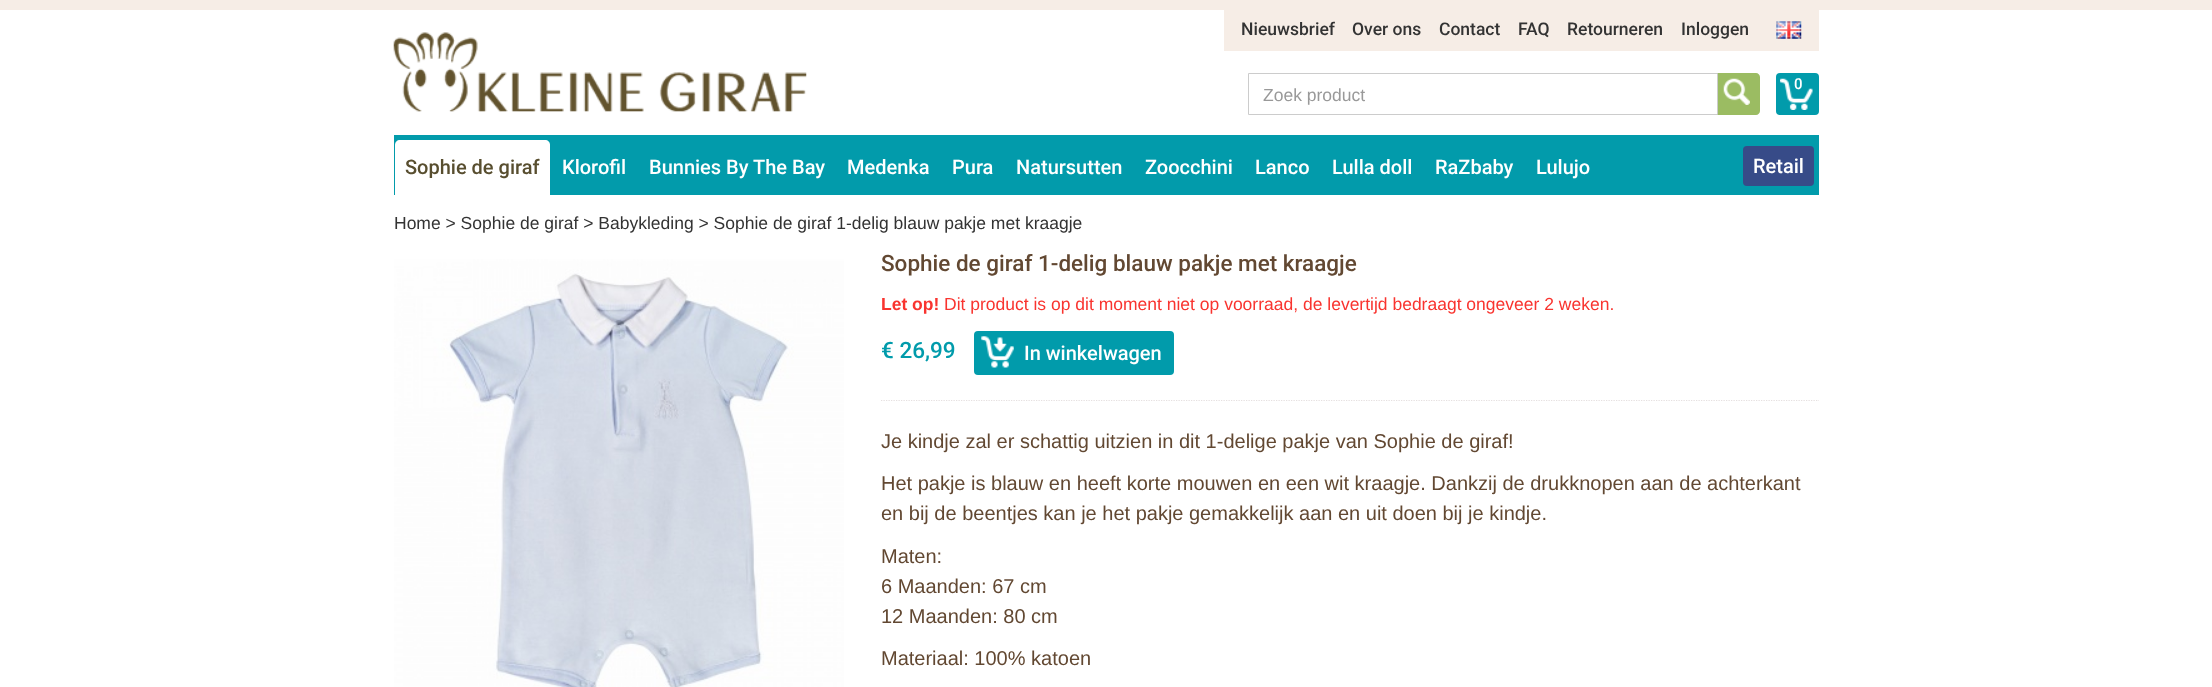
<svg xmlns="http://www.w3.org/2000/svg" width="2212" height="687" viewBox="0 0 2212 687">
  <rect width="100%" height="100%" fill="#fff"/>
  <path d="M0 0h2212v10H0z" fill="#f6ede6"/>
  <path d="M1224 10h595v41H1224z" fill="#f6ede6"/>
  <image x="1776" y="21" width="26" height="18" href="img/1.png"/>
  <image x="393" y="32" width="414" height="80" href="img/2.png"/>
  <rect x="1776" y="73" width="43" height="42" rx="4" fill="#019bab"/>
  <image x="1780" y="78" width="33" height="32" href="img/3.png"/>
  <path d="M1716 73H1756C1758 73 1760 75 1760 77V111C1760 113 1758 115 1756 115H1716Z" fill="#9bbc62"/>
  <path d="M1716 74h1v40H1716z" fill="#fff"/>
  <path d="M1248.5 73.5h469v41H1248.5z" fill="none" stroke="#ccc"/>
  <image x="1723" y="78" width="27" height="27" href="img/4.png"/>
  <path d="M394 135h1425v60H394z" fill="#029bab"/>
  <path d="M400 140H545C548 140 550 142 550 145V195H395V145C395 142 397 140 400 140Z" fill="#fff"/>
  <rect x="1743" y="146" width="71" height="40" rx="4" fill="#374b88"/>
  <image x="394" y="259" width="450" height="428" href="img/5.png"/>
  <rect x="974" y="331" width="200" height="44" rx="4" fill="#019bab"/>
  <image x="981" y="336" width="33" height="32" href="img/6.png"/>
  <path d="M881 400.5H1819" fill="none" stroke="#e5e0e0" stroke-width="1.2" stroke-dasharray="1.25 1.25"/>
  <g font-family="Roboto" font-size="17.5" font-weight="500" fill="#333">
    <text x="1241" y="35">Nieuwsbrief</text>
    <text x="1352" y="35">Over ons</text>
    <text x="1439" y="35">Contact</text>
    <text x="1518" y="35">FAQ</text>
    <text x="1567" y="35">Retourneren</text>
    <text x="1681" y="35">Inloggen</text>
  </g>
  <text x="1794" y="89" font-family="Roboto" font-size="15" font-weight="500" fill="#fff">0</text>
  <text x="1263" y="101" font-family="Liberation Sans" font-size="17.5" fill="#999">Zoek product</text>
  <text x="405" y="174" font-family="Roboto" font-size="20" font-weight="500" fill="#584e2f">Sophie de giraf</text>
  <g font-family="Roboto" font-size="20" font-weight="500" fill="#fff">
    <text x="562" y="174">Klorofil</text>
    <text x="649" y="174">Bunnies By The Bay</text>
    <text x="847" y="174">Medenka</text>
    <text x="952" y="174">Pura</text>
    <text x="1016" y="174">Natursutten</text>
    <text x="1145" y="174">Zoocchini</text>
    <text x="1255" y="174">Lanco</text>
    <text x="1332" y="174">Lulla doll</text>
    <text x="1435" y="174">RaZbaby</text>
    <text x="1536" y="174">Lulujo</text>
    <text x="1753" y="173">Retail</text>
  </g>
  <text x="394" y="229" font-family="Liberation Sans" font-size="17.5" fill="#333">Home &gt; Sophie de giraf &gt; Babykleding &gt; Sophie de giraf 1-delig blauw pakje met kraagje</text>
  <text x="881" y="271" font-family="Roboto" font-size="22.5" font-weight="500" fill="#624832">Sophie de giraf 1-delig blauw pakje met kraagje</text>
  <text x="881" y="310" font-family="Liberation Sans" font-size="17.5" font-weight="bold" fill="#f9342f">Let op!</text>
  <text x="944" y="310" font-family="Liberation Sans" font-size="17.5" fill="#f9342f">Dit product is op dit moment niet op voorraad, de levertijd bedraagt ongeveer 2 weken.</text>
  <text x="881" y="358" font-family="Roboto" font-size="22.5" font-weight="500" fill="#019bab">€ 26,99</text>
  <text x="1024" y="360" font-family="Roboto" font-size="20" font-weight="500" fill="#fff">In winkelwagen</text>
  <g font-family="Liberation Sans" font-size="20" fill="#624832">
    <text x="881" y="448">Je kindje zal er schattig uitzien in dit 1-delige pakje van Sophie de giraf!</text>
    <text x="881" y="490">Het pakje is blauw en heeft korte mouwen en een wit kraagje. Dankzij de drukknopen aan de achterkant</text>
    <text x="881" y="520">en bij de beentjes kan je het pakje gemakkelijk aan en uit doen bij je kindje.</text>
    <text x="881" y="563">Maten:</text>
    <text x="881" y="593">6 Maanden: 67 cm</text>
    <text x="881" y="623">12 Maanden: 80 cm</text>
    <text x="881" y="665">Materiaal: 100% katoen</text>
  </g>
</svg>
